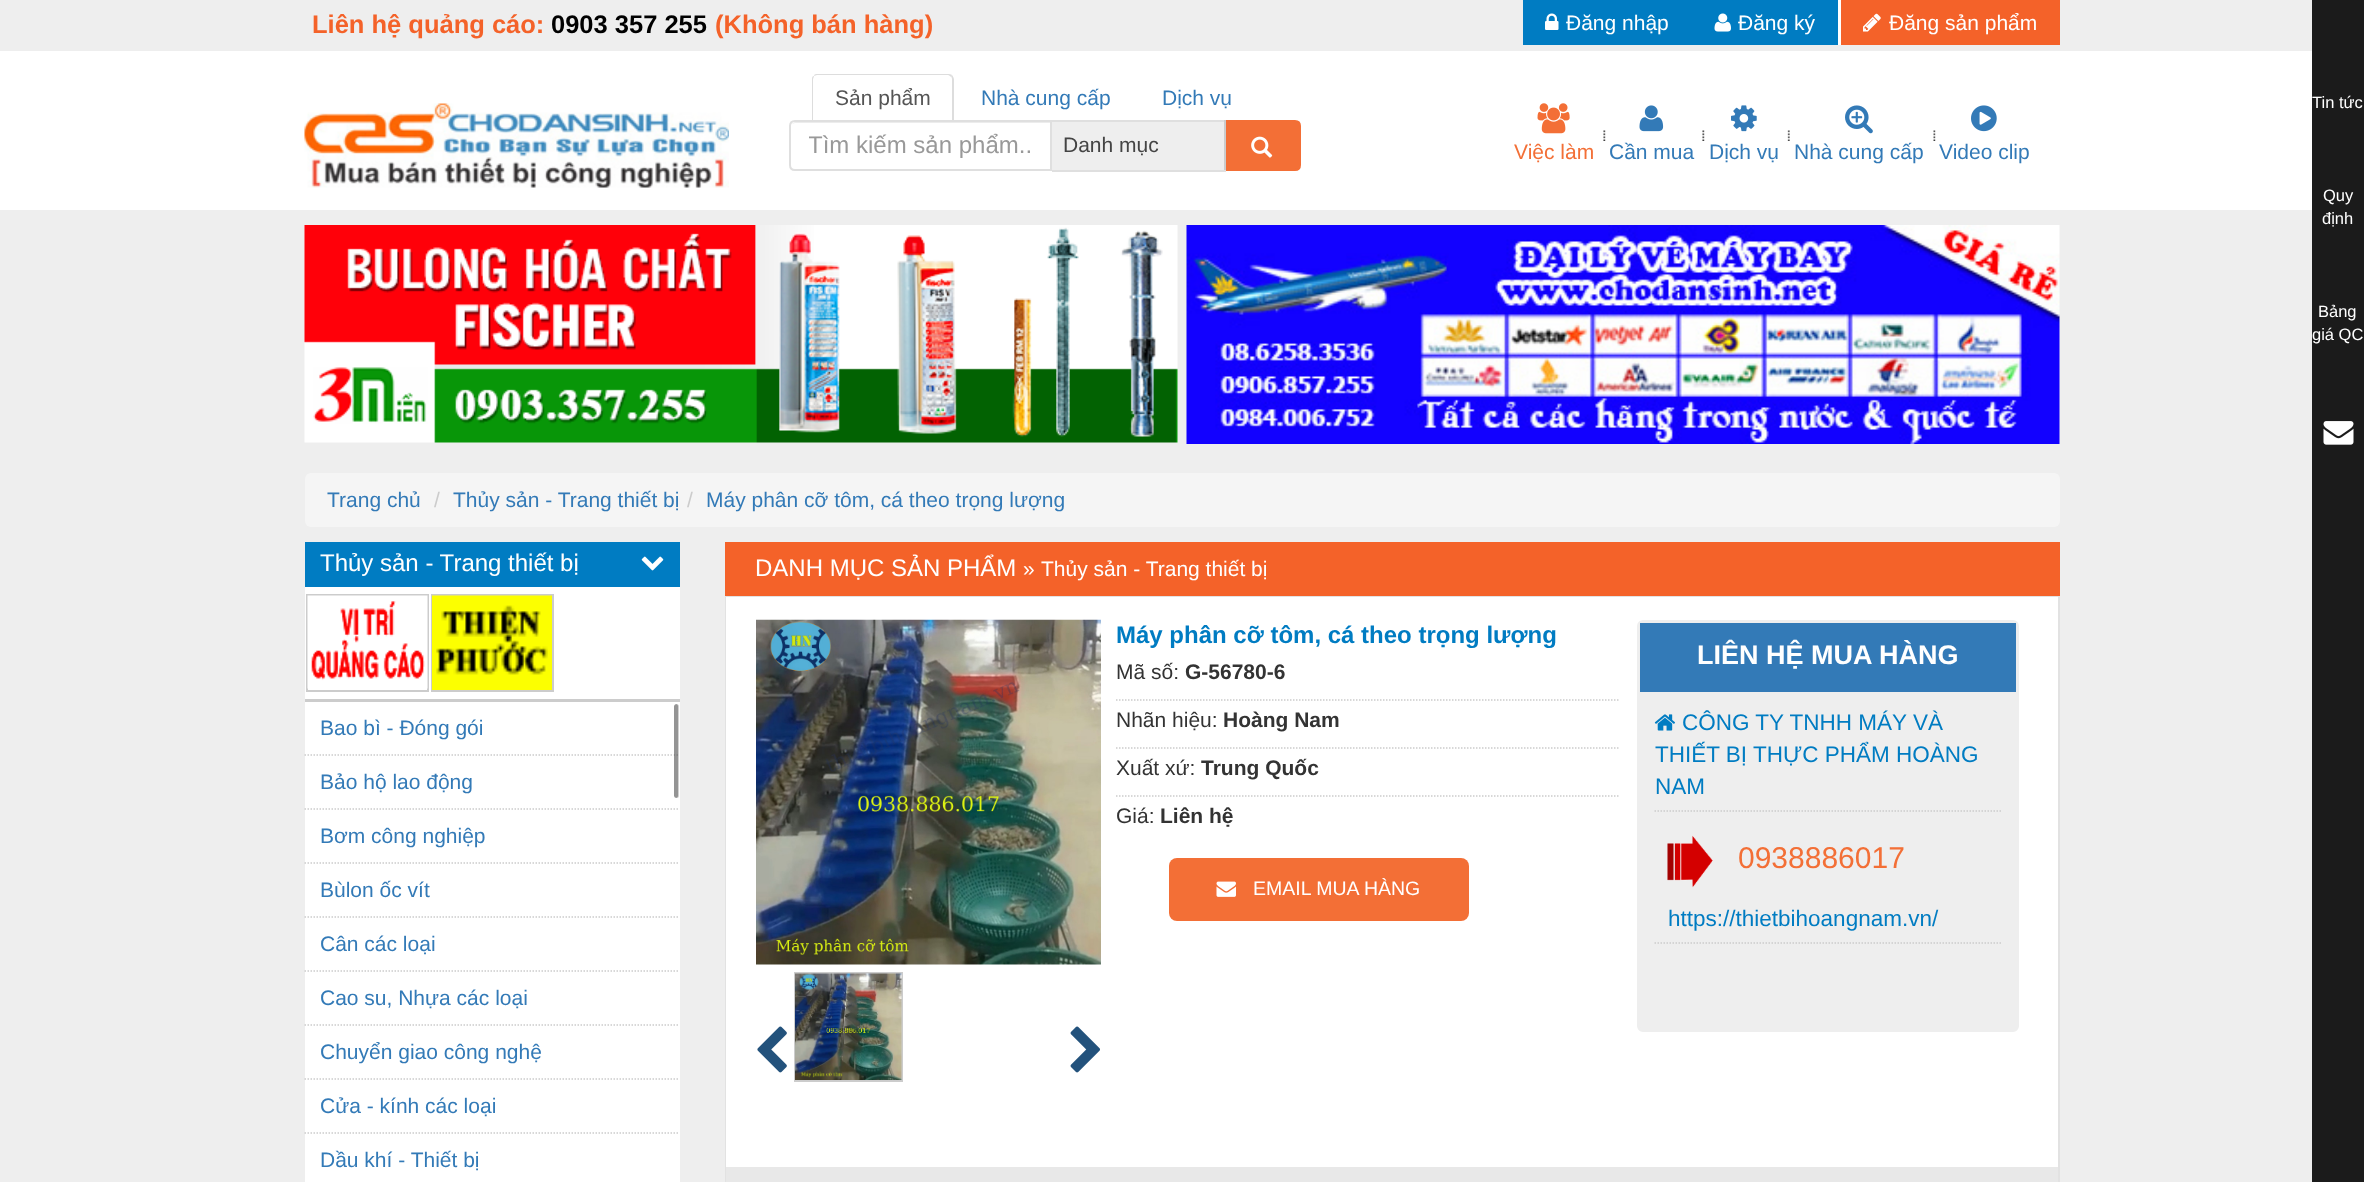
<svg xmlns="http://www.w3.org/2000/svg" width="2364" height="1182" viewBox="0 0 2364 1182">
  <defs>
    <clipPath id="clip1"><path d="M809 132h223v27H809z"/></clipPath>
  </defs>
  <rect width="100%" height="100%" fill="#eee"/>
  <path d="M1523 0h315v45H1523z" fill="#007cc2"/>
  <image x="1545" y="13" width="14" height="17" href="img/1.png"/>
  <image x="1714" y="13" width="17" height="19" href="img/2.png"/>
  <path d="M1841 0h219v45H1841z" fill="#f46229"/>
  <path d="M1838 0h3v45H1838z" fill="#fff"/>
  <image x="1863" y="13" width="18" height="19" href="img/3.png"/>
  <path d="M0 51h2312v159H0z" fill="#fff"/>
  <image x="304" y="103" width="425" height="85" href="img/4.png"/>
  <path d="M818 74C816 74 814 74 814 76L817 75H948C949 75 950 76 951 77L952 75C951 74 949 74 948 74Z" fill="#ddd"/>
  <path d="M952 75C953 76 954 78 954 80V122L952 120V80C952 79 952 77 951 77Z" fill="#ddd"/>
  <path d="M814 76C812 76 812 78 812 80V121L813 120V80C813 78 814 77 814 76Z" fill="#ddd"/>
  <path d="M795 120H1052V171H795C791.5 171 789 168.5 789 165V126C789 122.5 791.5 120 795 120Z" fill="#fff"/>
  <path d="M795 123H1050V122H796C794 122 793 123 792 124Z" fill="#ececec"/>
  <path d="M795 121H1051V170H795C792 170 790 168 790 165V126C790 123 792 121 795 121Z" fill="none" stroke="#dfdfdf" stroke-width="2"/>
  <path d="M1052 122h172v48H1052z" fill="#eee"/>
  <path d="M1052 120h174v2H1052z" fill="#dfdfdf"/>
  <path d="M1224 120h2v51H1224z" fill="#ccc"/>
  <path d="M1052 170h174v2H1052z" fill="#dfdfdf"/>
  <path d="M1227 121H1295C1298 121 1300 123 1300 126V165C1300 168 1298 170 1295 170H1227Z" fill="#f36f36" stroke="#f36f36" stroke-width="2"/>
  <image x="1251" y="136" width="22" height="22" href="img/5.png"/>
  <image x="1537" y="103" width="33" height="31" href="img/6.png"/>
  <image x="1603" y="130" width="3" height="11" href="img/7.png"/>
  <image x="1639" y="105" width="25" height="27" href="img/8.png"/>
  <image x="1702" y="130" width="3" height="11" href="img/7.png"/>
  <image x="1731" y="105" width="26" height="27" href="img/9.png"/>
  <image x="1787" y="130" width="3" height="11" href="img/10.png"/>
  <image x="1845" y="105" width="28" height="29" href="img/11.png"/>
  <image x="1933" y="130" width="3" height="11" href="img/12.png"/>
  <image x="1971" y="105" width="26" height="27" href="img/13.png"/>
  <path d="M2312 0h52v1182H2312z" fill="#1b1b1b"/>
  <image x="2323" y="421" width="31" height="24" href="img/14.png"/>
  <image x="304" y="225" width="874" height="218" href="img/15.png"/>
  <image x="1186" y="225" width="874" height="219" href="img/16.png"/>
  <rect x="305" y="473" width="1755" height="54" rx="6" fill="#f5f5f5"/>
  <path d="M305 587h375v595H305z" fill="#fff"/>
  <path d="M305 542h375v45H305z" fill="#007cc2"/>
  <image x="641" y="556" width="23" height="15" href="img/17.png"/>
  <path d="M307 595h121v96H307z" fill="none" stroke="#ccc" stroke-width="2"/>
  <image x="307" y="595" width="121" height="94" href="img/18.png"/>
  <path d="M432 595h121v96H432z" fill="none" stroke="#ccc" stroke-width="2"/>
  <image x="432" y="595" width="120" height="95" href="img/19.png"/>
  <path d="M305 699h375v3H305z" fill="#ccc"/>
  <path d="M304.5 755H679.5" fill="none" stroke="#ccc" stroke-width="1.5" stroke-dasharray="1.5 1.5"/>
  <path d="M304.5 809H679.5" fill="none" stroke="#ccc" stroke-width="1.5" stroke-dasharray="1.5 1.5"/>
  <path d="M304.5 863H679.5" fill="none" stroke="#ccc" stroke-width="1.5" stroke-dasharray="1.5 1.5"/>
  <path d="M304.5 917H679.5" fill="none" stroke="#ccc" stroke-width="1.5" stroke-dasharray="1.5 1.5"/>
  <path d="M304.5 971H679.5" fill="none" stroke="#ccc" stroke-width="1.5" stroke-dasharray="1.5 1.5"/>
  <path d="M304.5 1025H679.5" fill="none" stroke="#ccc" stroke-width="1.5" stroke-dasharray="1.5 1.5"/>
  <path d="M304.5 1079H679.5" fill="none" stroke="#ccc" stroke-width="1.5" stroke-dasharray="1.5 1.5"/>
  <path d="M304.5 1133H679.5" fill="none" stroke="#ccc" stroke-width="1.5" stroke-dasharray="1.5 1.5"/>
  <rect x="674" y="704" width="5" height="94" rx="2.5" fill="#42424291"/>
  <rect x="673" y="703" width="6" height="96" rx="3" fill="none" stroke="#ffffff91" stroke-width="2"/>
  <path d="M725 542h1335v54H725z" fill="#f46229"/>
  <path d="M726 597h1333v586H726z" fill="none" stroke="#e2e2e2" stroke-width="2"/>
  <path d="M726 597h1332v570H726z" fill="#fff"/>
  <image x="756" y="619" width="345" height="346" href="img/20.png"/>
  <image x="757" y="1026" width="30" height="47" href="img/21.png"/>
  <path d="M795 973h107v108H795z" fill="none" stroke="#ccc" stroke-width="2"/>
  <image x="795" y="973" width="107" height="107" href="img/22.png"/>
  <image x="1070" y="1026" width="30" height="47" href="img/23.png"/>
  <path d="M1116 700H1618.5" fill="none" stroke="#ccc" stroke-width="1.5" stroke-dasharray="1.5 1.5"/>
  <path d="M1116 748H1618.5" fill="none" stroke="#ccc" stroke-width="1.5" stroke-dasharray="1.5 1.5"/>
  <path d="M1116 796H1618.5" fill="none" stroke="#ccc" stroke-width="1.5" stroke-dasharray="1.5 1.5"/>
  <rect x="1169" y="858" width="300" height="63" rx="8" fill="#f36f36"/>
  <image x="1216" y="881" width="20" height="16" href="img/24.png"/>
  <rect x="1638.5" y="621.5" width="379" height="409" rx="4.5" fill="#eee" stroke="#eee" stroke-width="3"/>
  <path d="M1640 623h376v69H1640z" fill="#337ab7"/>
  <path d="M1654.5 811H2001" fill="none" stroke="#ccc" stroke-width="1.5" stroke-dasharray="1.5 1.5"/>
  <image x="1654" y="714" width="21" height="17" href="img/25.png"/>
  <image x="1667" y="835" width="46" height="53" href="img/26.png"/>
  <path d="M1654.5 943H2001" fill="none" stroke="#ccc" stroke-width="1.5" stroke-dasharray="1.5 1.5"/>
  <path d="M726 1167h1332v15H726z" fill="#e8e8e8"/>
  <text x="312" y="33" font-family="Liberation Sans" font-size="25.5" font-weight="bold" fill="#f46229">Liên hệ quảng cáo:</text>
  <text x="551" y="33" font-family="Liberation Sans" font-size="25.5" font-weight="bold" fill="#000">0903 357 255</text>
  <text x="715" y="33" font-family="Liberation Sans" font-size="25.5" font-weight="bold" fill="#f46229">(Không bán hàng)</text>
  <g font-family="Liberation Sans" font-size="21" fill="#fff">
    <text x="1566" y="30">Đăng nhập</text>
    <text x="1738" y="30">Đăng ký</text>
    <text x="1889" y="30">Đăng sản phẩm</text>
  </g>
  <text x="835" y="105" font-family="Liberation Sans" font-size="21" fill="#555">Sản phẩm</text>
  <g font-family="Liberation Sans" font-size="21" fill="#337ab7">
    <text x="981" y="105">Nhà cung cấp</text>
    <text x="1162" y="105">Dịch vụ</text>
  </g>
  <g clip-path="url(#clip1)">
    <text x="808" y="153" font-family="Liberation Sans" font-size="24" fill="#999">Tìm kiếm sản phẩm..</text>
  </g>
  <text x="1063" y="152" font-family="Liberation Sans" font-size="21" fill="#444">Danh mục</text>
  <text x="1514" y="159" font-family="Liberation Sans" font-size="21" fill="#f36f36">Việc làm</text>
  <g font-family="Liberation Sans" font-size="21" fill="#337ab7">
    <text x="1609" y="159">Cần mua</text>
    <text x="1709" y="159">Dịch vụ</text>
    <text x="1794" y="159">Nhà cung cấp</text>
    <text x="1939" y="159">Video clip</text>
  </g>
  <g font-family="Liberation Sans" font-size="16.5" fill="#fff">
    <text x="2312" y="108">Tin tức</text>
    <text x="2323" y="201">Quy</text>
    <text x="2322" y="224">định</text>
    <text x="2318" y="317">Bảng</text>
    <text x="2312" y="340">giá QC</text>
  </g>
  <text x="327" y="507" font-family="Liberation Sans" font-size="21" fill="#337ab7">Trang chủ</text>
  <text x="434" y="507" font-family="Liberation Sans" font-size="21" fill="#ccc">/</text>
  <text x="453" y="507" font-family="Liberation Sans" font-size="21" fill="#337ab7">Thủy sản - Trang thiết bị</text>
  <text x="687" y="507" font-family="Liberation Sans" font-size="21" fill="#ccc">/</text>
  <text x="706" y="507" font-family="Liberation Sans" font-size="21" fill="#337ab7">Máy phân cỡ tôm, cá theo trọng lượng</text>
  <text x="320" y="571" font-family="Liberation Sans" font-size="24" fill="#fff">Thủy sản - Trang thiết bị</text>
  <g font-family="Liberation Sans" font-size="21" fill="#337ab7">
    <text x="320" y="735">Bao bì - Đóng gói</text>
    <text x="320" y="789">Bảo hộ lao động</text>
    <text x="320" y="843">Bơm công nghiệp</text>
    <text x="320" y="897">Bùlon ốc vít</text>
    <text x="320" y="951">Cân các loại</text>
    <text x="320" y="1005">Cao su, Nhựa các loại</text>
    <text x="320" y="1059">Chuyển giao công nghệ</text>
    <text x="320" y="1113">Cửa - kính các loại</text>
    <text x="320" y="1167">Dầu khí - Thiết bị</text>
  </g>
  <text x="755" y="576" font-family="Liberation Sans" font-size="24" fill="#fff">DANH MỤC SẢN PHẨM</text>
  <g font-family="Liberation Sans" font-size="21" fill="#fff">
    <text x="1023" y="576">»</text>
    <text x="1041" y="576">Thủy sản - Trang thiết bị</text>
  </g>
  <text x="1116" y="643" font-family="Liberation Sans" font-size="24" font-weight="bold" fill="#007cc2">Máy phân cỡ tôm, cá theo trọng lượng</text>
  <text x="1116" y="679" font-family="Liberation Sans" font-size="21" fill="#333">Mã số:</text>
  <text x="1185" y="679" font-family="Liberation Sans" font-size="21" font-weight="bold" fill="#333">G-56780-6</text>
  <text x="1116" y="727" font-family="Liberation Sans" font-size="21" fill="#333">Nhãn hiệu:</text>
  <text x="1223" y="727" font-family="Liberation Sans" font-size="21" font-weight="bold" fill="#333">Hoàng Nam</text>
  <text x="1116" y="775" font-family="Liberation Sans" font-size="21" fill="#333">Xuất xứ:</text>
  <text x="1201" y="775" font-family="Liberation Sans" font-size="21" font-weight="bold" fill="#333">Trung Quốc</text>
  <text x="1116" y="823" font-family="Liberation Sans" font-size="21" fill="#333">Giá:</text>
  <text x="1160" y="823" font-family="Liberation Sans" font-size="21" font-weight="bold" fill="#333">Liên hệ</text>
  <text x="1253" y="895" font-family="Liberation Sans" font-size="19.5" fill="#fff">EMAIL MUA HÀNG</text>
  <text x="1697" y="664" font-family="Liberation Sans" font-size="27" font-weight="bold" fill="#fff">LIÊN HỆ MUA HÀNG</text>
  <g font-family="Liberation Sans" font-size="22.5" fill="#007cc2">
    <text x="1682" y="730">CÔNG TY TNHH MÁY VÀ</text>
    <text x="1655" y="762">THIẾT BỊ THỰC PHẨM HOÀNG</text>
    <text x="1655" y="794">NAM</text>
  </g>
  <text x="1738" y="868" font-family="Liberation Sans" font-size="30" fill="#f36f36">0938886017</text>
  <text x="1668" y="926" font-family="Liberation Sans" font-size="22.5" fill="#007cc2">https://thietbihoangnam.vn/</text>
</svg>
